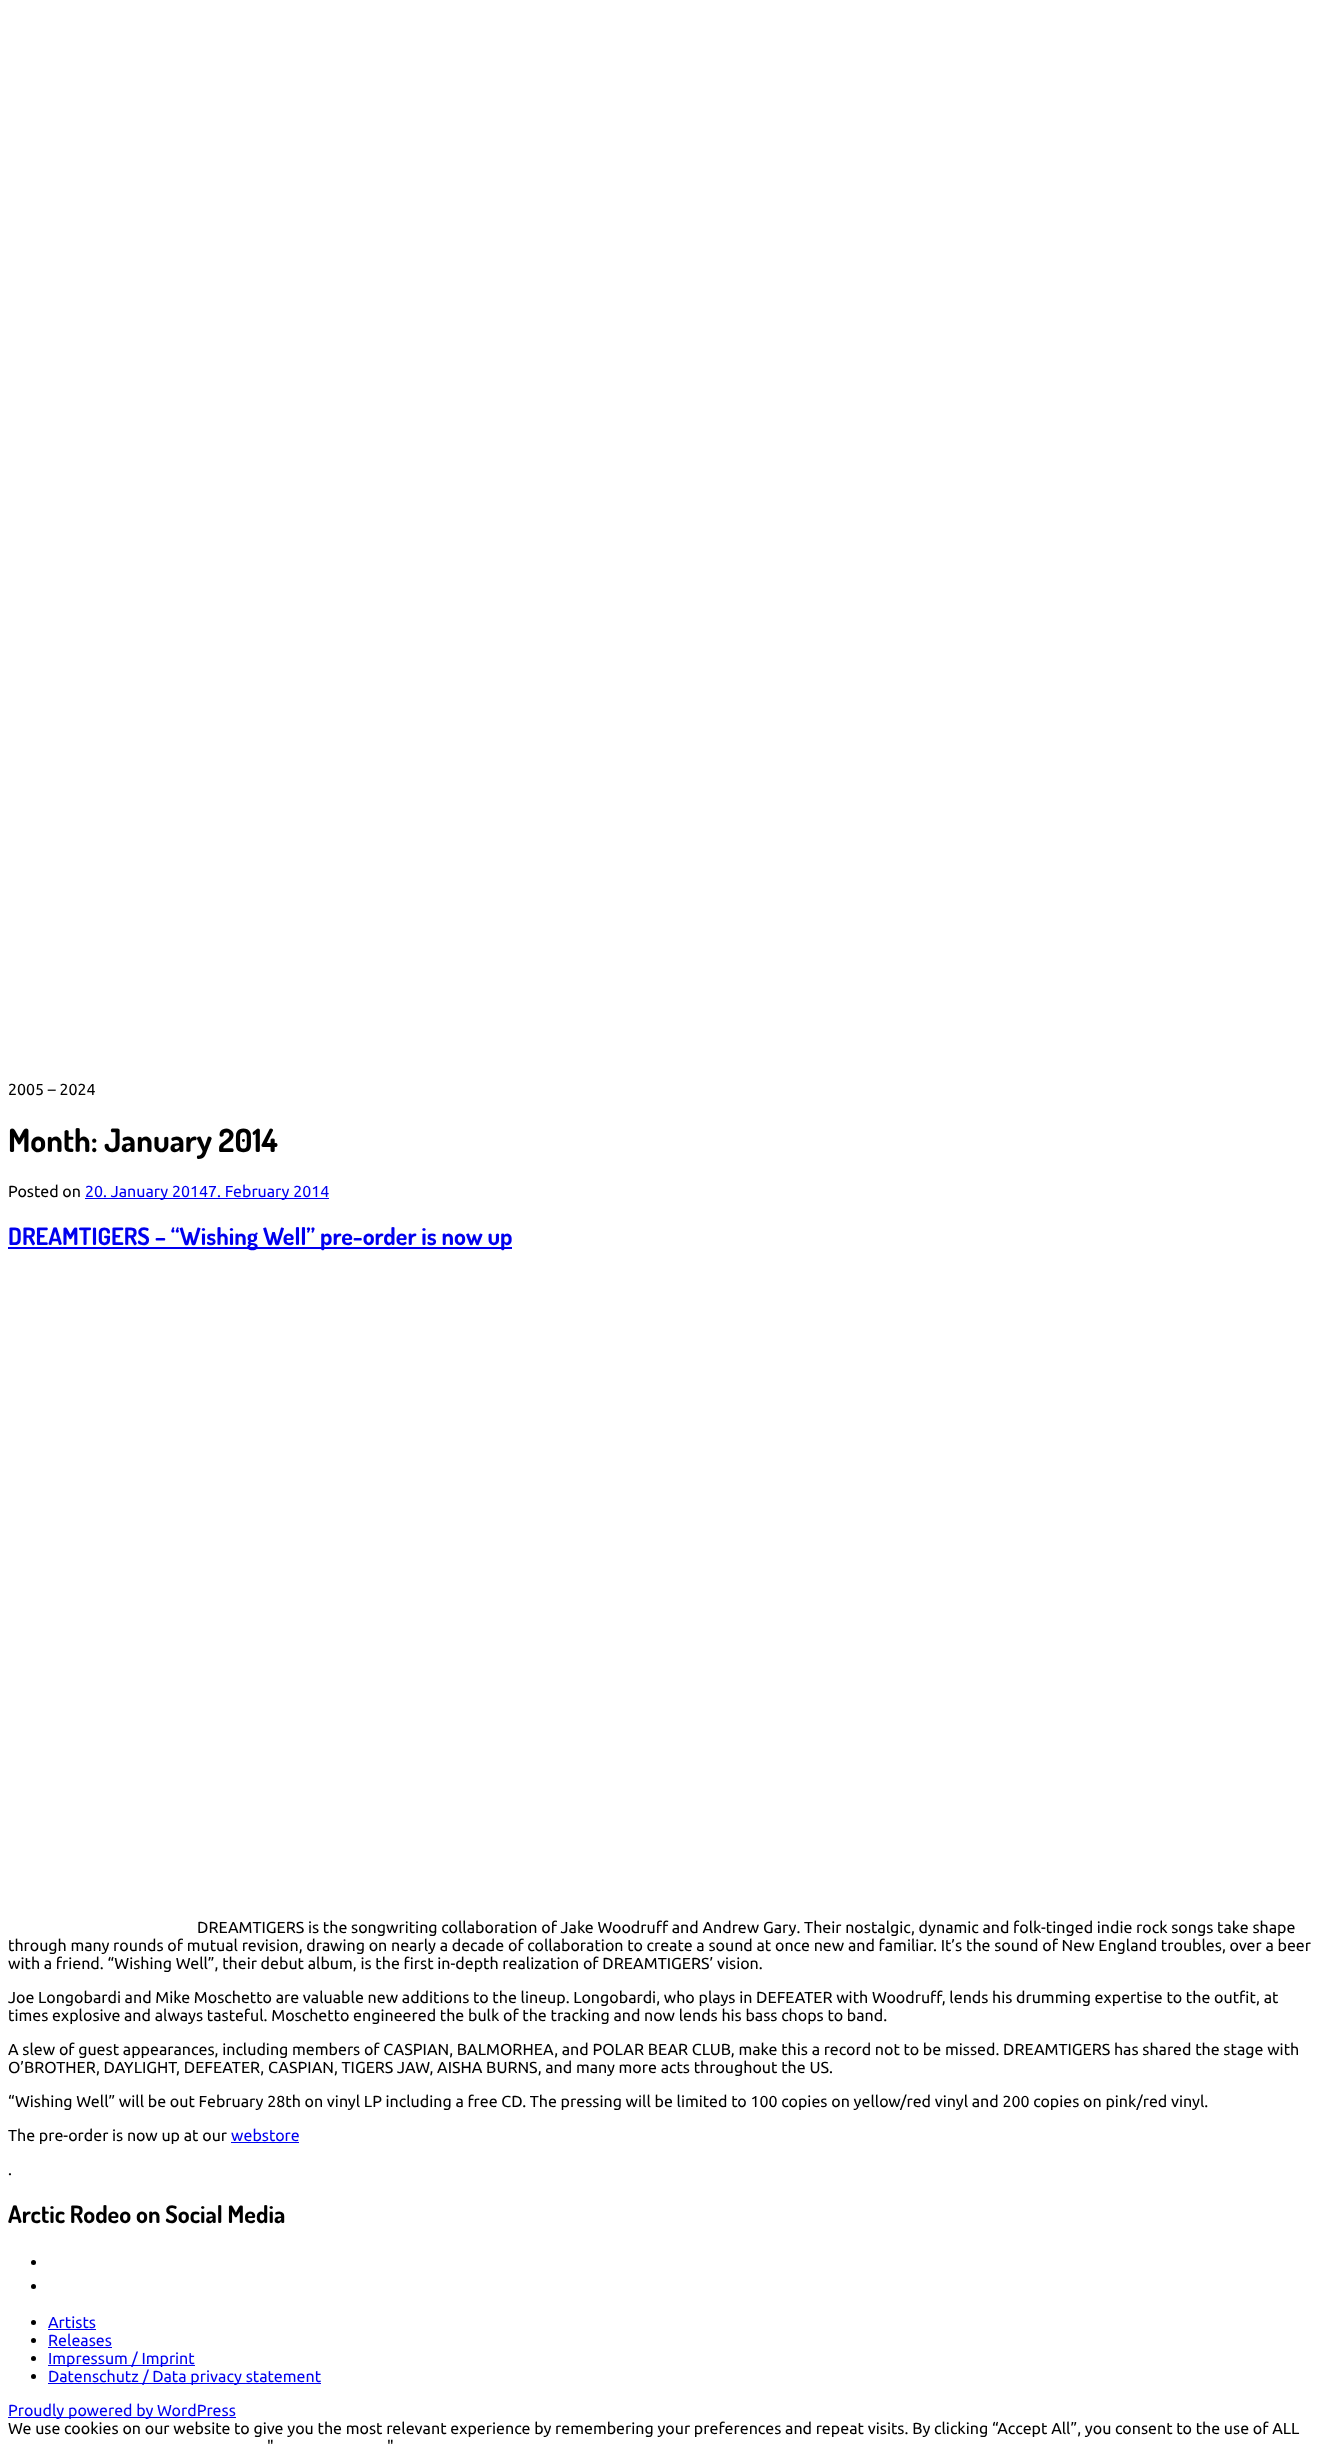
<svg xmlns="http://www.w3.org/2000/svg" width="1320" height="2445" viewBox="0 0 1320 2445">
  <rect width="100%" height="100%" fill="#fff"/>
  <path d="M85 1198h244v1H85z" fill="#00e"/>
  <path d="M8 1247h504v2H8z" fill="#00e"/>
  <path d="M231 2142h68v1H231z" fill="#00e"/>
  <circle cx="33.5" cy="2262.5" r="2.5" fill="#000"/>
  <circle cx="33.5" cy="2286.5" r="2.5" fill="#000"/>
  <circle cx="33.5" cy="2322.5" r="2.5" fill="#000"/>
  <path d="M48 2329h48v1H48z" fill="#00e"/>
  <circle cx="33.5" cy="2340.5" r="2.5" fill="#000"/>
  <path d="M48 2347h64v1H48z" fill="#00e"/>
  <circle cx="33.5" cy="2358.5" r="2.5" fill="#000"/>
  <path d="M48 2365h147v1H48z" fill="#00e"/>
  <circle cx="33.5" cy="2376.5" r="2.5" fill="#000"/>
  <path d="M48 2383h273v1H48z" fill="#00e"/>
  <path d="M8 2417h228v1H8z" fill="#00e"/>
  <text x="8" y="1095" font-family="Ubuntu" font-size="16" fill="#000">2005 – 2024</text>
  <text x="8" y="1152" font-family="Dosis" font-size="32" font-weight="bold" fill="#000">Month: January 2014</text>
  <text x="8" y="1197" font-family="Ubuntu" font-size="16" fill="#000">Posted on</text>
  <text x="85" y="1197" font-family="Ubuntu" font-size="16" fill="#00e">20. January 20147. February 2014</text>
  <text x="8" y="1245" font-family="Dosis" font-size="24" font-weight="bold" fill="#00e">DREAMTIGERS – “Wishing Well” pre-order is now up</text>
  <g font-family="Ubuntu" font-size="16" fill="#000">
    <text x="197" y="1933">DREAMTIGERS is the songwriting collaboration of Jake Woodruff and Andrew Gary. Their nostalgic, dynamic and folk-tinged indie rock songs take shape</text>
    <text x="8" y="1951">through many rounds of mutual revision, drawing on nearly a decade of collaboration to create a sound at once new and familiar. It’s the sound of New England troubles, over a beer</text>
    <text x="8" y="1969">with a friend. “Wishing Well”, their debut album, is the first in-depth realization of DREAMTIGERS’ vision.</text>
    <text x="8" y="2003">Joe Longobardi and Mike Moschetto are valuable new additions to the lineup. Longobardi, who plays in DEFEATER with Woodruff, lends his drumming expertise to the outfit, at</text>
    <text x="8" y="2021">times explosive and always tasteful. Moschetto engineered the bulk of the tracking and now lends his bass chops to band.</text>
    <text x="8" y="2055">A slew of guest appearances, including members of CASPIAN, BALMORHEA, and POLAR BEAR CLUB, make this a record not to be missed. DREAMTIGERS has shared the stage with</text>
    <text x="8" y="2073">O’BROTHER, DAYLIGHT, DEFEATER, CASPIAN, TIGERS JAW, AISHA BURNS, and many more acts throughout the US.</text>
    <text x="8" y="2107">“Wishing Well” will be out February 28th on vinyl LP including a free CD. The pressing will be limited to 100 copies on yellow/red vinyl and 200 copies on pink/red vinyl.</text>
    <text x="8" y="2141">The pre-order is now up at our</text>
  </g>
  <text x="231" y="2141" font-family="Ubuntu" font-size="16" fill="#00e">webstore</text>
  <text x="8" y="2175" font-family="Ubuntu" font-size="16" fill="#000">.</text>
  <text x="8" y="2223" font-family="Dosis" font-size="24" font-weight="bold" fill="#000">Arctic Rodeo on Social Media</text>
  <g font-family="Ubuntu" font-size="16" fill="#00e">
    <text x="48" y="2328">Artists</text>
    <text x="48" y="2346">Releases</text>
    <text x="48" y="2364">Impressum / Imprint</text>
    <text x="48" y="2382">Datenschutz / Data privacy statement</text>
    <text x="8" y="2416">Proudly powered by WordPress</text>
  </g>
  <g font-family="Ubuntu" font-size="16" fill="#000">
    <text x="8" y="2434">We use cookies on our website to give you the most relevant experience by remembering your preferences and repeat visits. By clicking “Accept All”, you consent to the use of ALL</text>
    <text x="267" y="2452">"</text>
    <text x="387" y="2452">"</text>
  </g>
</svg>
